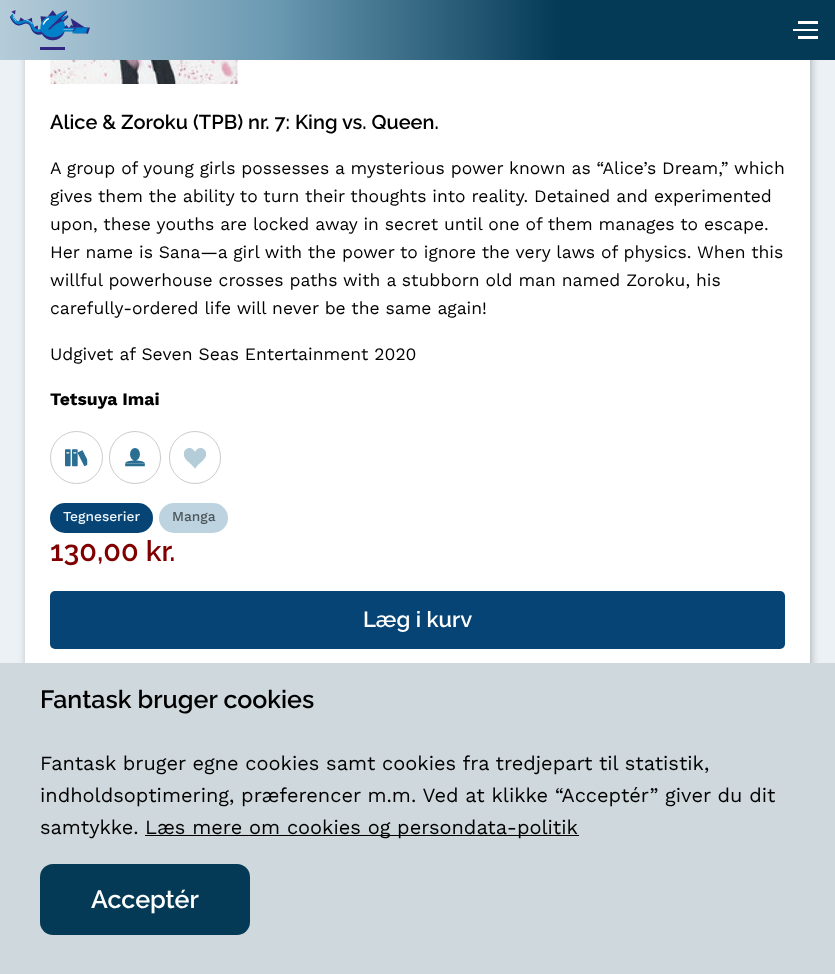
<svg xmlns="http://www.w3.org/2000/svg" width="835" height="974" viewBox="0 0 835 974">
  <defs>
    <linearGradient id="g1" gradientUnits="userSpaceOnUse" x1="0" y1="30" x2="835" y2="30"><stop offset="0" stop-color="#b5ccd9"/><stop offset="0.33" stop-color="#6a99b2"/><stop offset="0.67" stop-color="#043a56"/><stop offset="1" stop-color="#043a56"/></linearGradient>
  </defs>
  <rect width="100%" height="100%" fill="#ebf1f5"/>
  <rect x="28" y="-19" width="782" height="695" rx="4" fill="#00000059" filter="blur(5px)"/>
  <path d="M0 0h835v60H0z" fill="url(#g1)"/>
  <image x="10" y="10" width="80" height="40" href="img/1.png"/>
  <path d="M793 29h25v2H793z" fill="#fff"/>
  <path d="M798 21h20v3H798z" fill="#fff"/>
  <path d="M798 36h20v3H798z" fill="#fff"/>
  <path d="M25 60h785v603H25z" fill="#fff"/>
  <image x="50" y="60" width="188" height="24" href="img/2.png"/>
  <circle cx="76.5" cy="457.5" r="26" fill="none" stroke="#ccc"/>
  <image x="65" y="449" width="23" height="18" href="img/3.png"/>
  <rect x="109.5" y="431.5" width="51" height="52" rx="25.5" fill="none" stroke="#ccc"/>
  <image x="125" y="448" width="20" height="19" href="img/4.png"/>
  <rect x="169.5" y="431.5" width="51" height="52" rx="25.5" fill="none" stroke="#ccc"/>
  <image x="184" y="448" width="22" height="21" href="img/5.png"/>
  <rect x="50" y="503" width="103" height="30" rx="15" fill="#064475"/>
  <rect x="159" y="503" width="69" height="30" rx="15" fill="#bdd4e0"/>
  <rect x="50" y="591" width="735" height="58" rx="5" fill="#064475"/>
  <path d="M0 663h835v311H0z" fill="#cfd8dc"/>
  <path d="M145 835h434v1H145z" fill="#000"/>
  <rect x="40" y="864" width="210" height="71" rx="13" fill="#043a56"/>
  <text x="50" y="129" font-family="Raleway" font-size="20" font-weight="100" fill="#000">Alice &amp; Zoroku (TPB) nr. 7: King vs. Queen.</text>
  <g font-family="Work Sans" font-size="17.5" fill="#000">
    <text x="50" y="174">A group of young girls possesses a mysterious power known as “Alice’s Dream,” which</text>
    <text x="50" y="202">gives them the ability to turn their thoughts into reality. Detained and experimented</text>
    <text x="50" y="230">upon, these youths are locked away in secret until one of them manages to escape.</text>
    <text x="50" y="258">Her name is Sana—a girl with the power to ignore the very laws of physics. When this</text>
    <text x="50" y="286">willful powerhouse crosses paths with a stubborn old man named Zoroku, his</text>
    <text x="50" y="314">carefully-ordered life will never be the same again!</text>
    <text x="50" y="360">Udgivet af Seven Seas Entertainment 2020</text>
  </g>
  <text x="50" y="405" font-family="Work Sans" font-size="17.5" font-weight="bold" fill="#000">Tetsuya Imai</text>
  <text x="63" y="521" font-family="Work Sans" font-size="13.75" font-weight="500" fill="#ecf4f9">Tegneserier</text>
  <text x="172" y="521" font-family="Work Sans" font-size="13.75" font-weight="500" fill="#4c555a">Manga</text>
  <text x="50" y="561" font-family="Raleway" font-size="28.75" font-weight="100" fill="#800000">130,00 kr.</text>
  <text x="363" y="627" font-family="Raleway" font-size="22" font-weight="100" fill="#fff">Læg i kurv</text>
  <text x="40" y="708" font-family="Raleway" font-size="25" font-weight="100" fill="#000">Fantask bruger cookies</text>
  <g font-family="Work Sans" font-size="20" fill="#000">
    <text x="40" y="770">Fantask bruger egne cookies samt cookies fra tredjepart til statistik,</text>
    <text x="40" y="802">indholdsoptimering, præferencer m.m. Ved at klikke “Acceptér” giver du dit</text>
    <text x="40" y="834">samtykke.</text>
    <text x="145" y="834">Læs mere om cookies og persondata-politik</text>
  </g>
  <text x="91" y="908" font-family="Raleway" font-size="25" font-weight="100" fill="#fff">Acceptér</text>
</svg>
